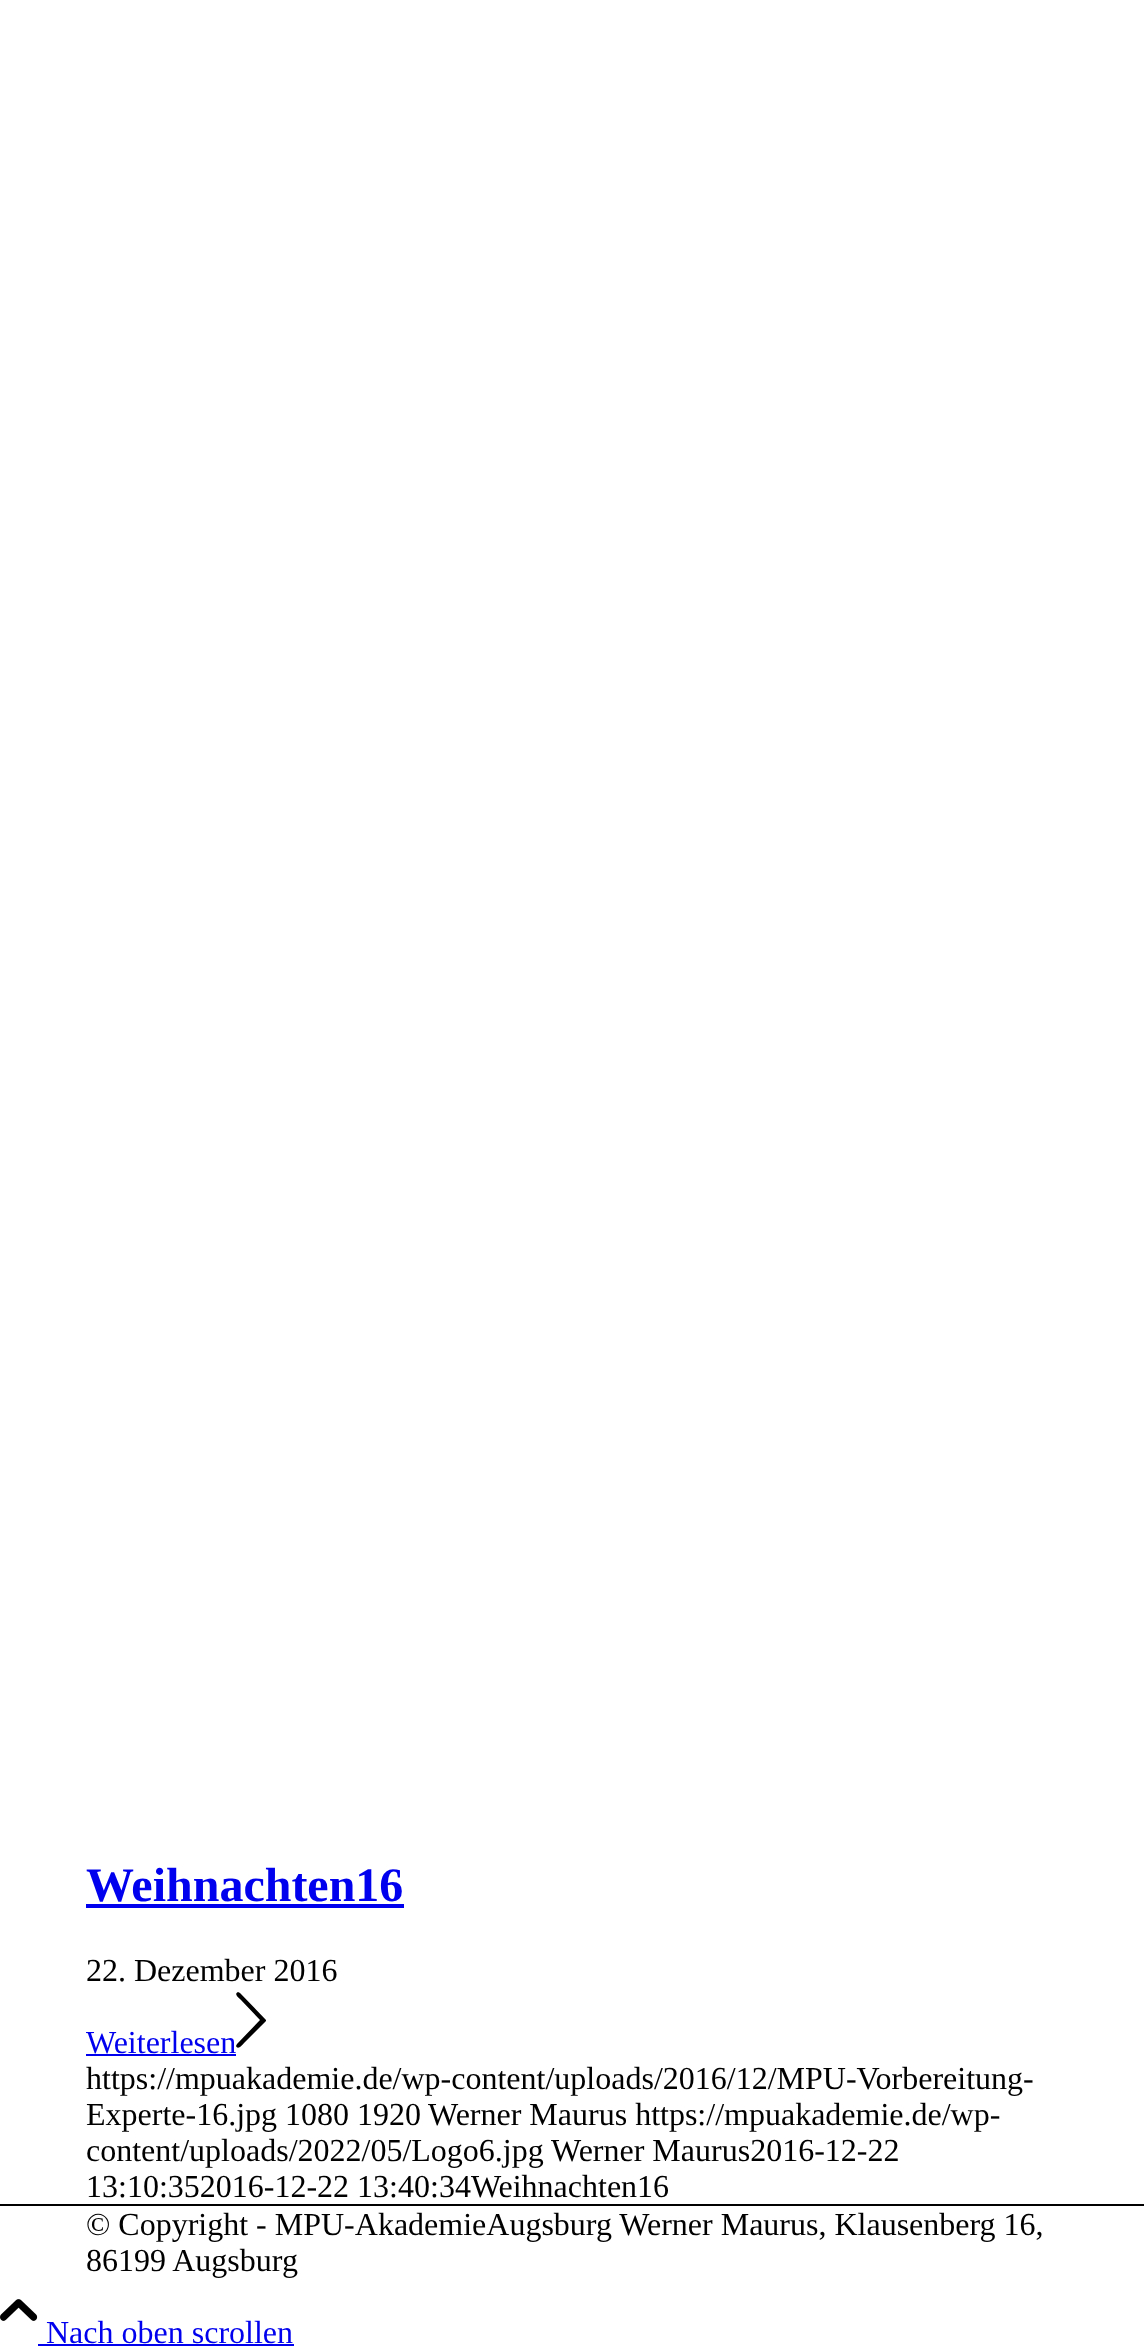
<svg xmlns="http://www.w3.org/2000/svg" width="1144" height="2350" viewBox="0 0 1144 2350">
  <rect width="100%" height="100%" fill="#fff"/>
  <path d="M86 1904h318v4H86z" fill="#00e"/>
  <path d="M86 2054h150v2H86z" fill="#00e"/>
  <path d="M237 2044L260 2020L241 2000C240 1999 233 1994 238 1992L240 1993L266 2020V2021L244 2043C244 2043 238 2051 236 2046Z" fill="#000"/>
  <path d="M0 2204h1144v2H0z" fill="#000"/>
  <image x="0" y="2299" width="38" height="22" href="img/1.png"/>
  <path d="M38 2344h256v2H38z" fill="#00e"/>
  <text x="86" y="1901" font-family="Liberation Serif" font-size="48" font-weight="bold" fill="#00e">Weihnachten16</text>
  <text x="86" y="1981" font-family="Liberation Serif" font-size="32" fill="#000">22. Dezember 2016</text>
  <text x="86" y="2053" font-family="Liberation Serif" font-size="32" fill="#00e">Weiterlesen</text>
  <g font-family="Liberation Serif" font-size="32" fill="#000">
    <text x="86" y="2089">https://mpuakademie.de/wp-content/uploads/2016/12/MPU-Vorbereitung-</text>
    <text x="86" y="2125">Experte-16.jpg 1080 1920</text>
    <text x="428" y="2125">Werner Maurus https://mpuakademie.de/wp-</text>
    <text x="86" y="2161">content/uploads/2022/05/Logo6.jpg</text>
    <text x="551" y="2161">Werner Maurus2016-12-22</text>
    <text x="86" y="2197">13:10:352016-12-22 13:40:34Weihnachten16</text>
    <text x="86" y="2235">© Copyright - MPU-AkademieAugsburg Werner Maurus, Klausenberg 16,</text>
    <text x="86" y="2271">86199 Augsburg</text>
  </g>
  <text x="46" y="2343" font-family="Liberation Serif" font-size="32" fill="#00e">Nach oben scrollen</text>
</svg>
